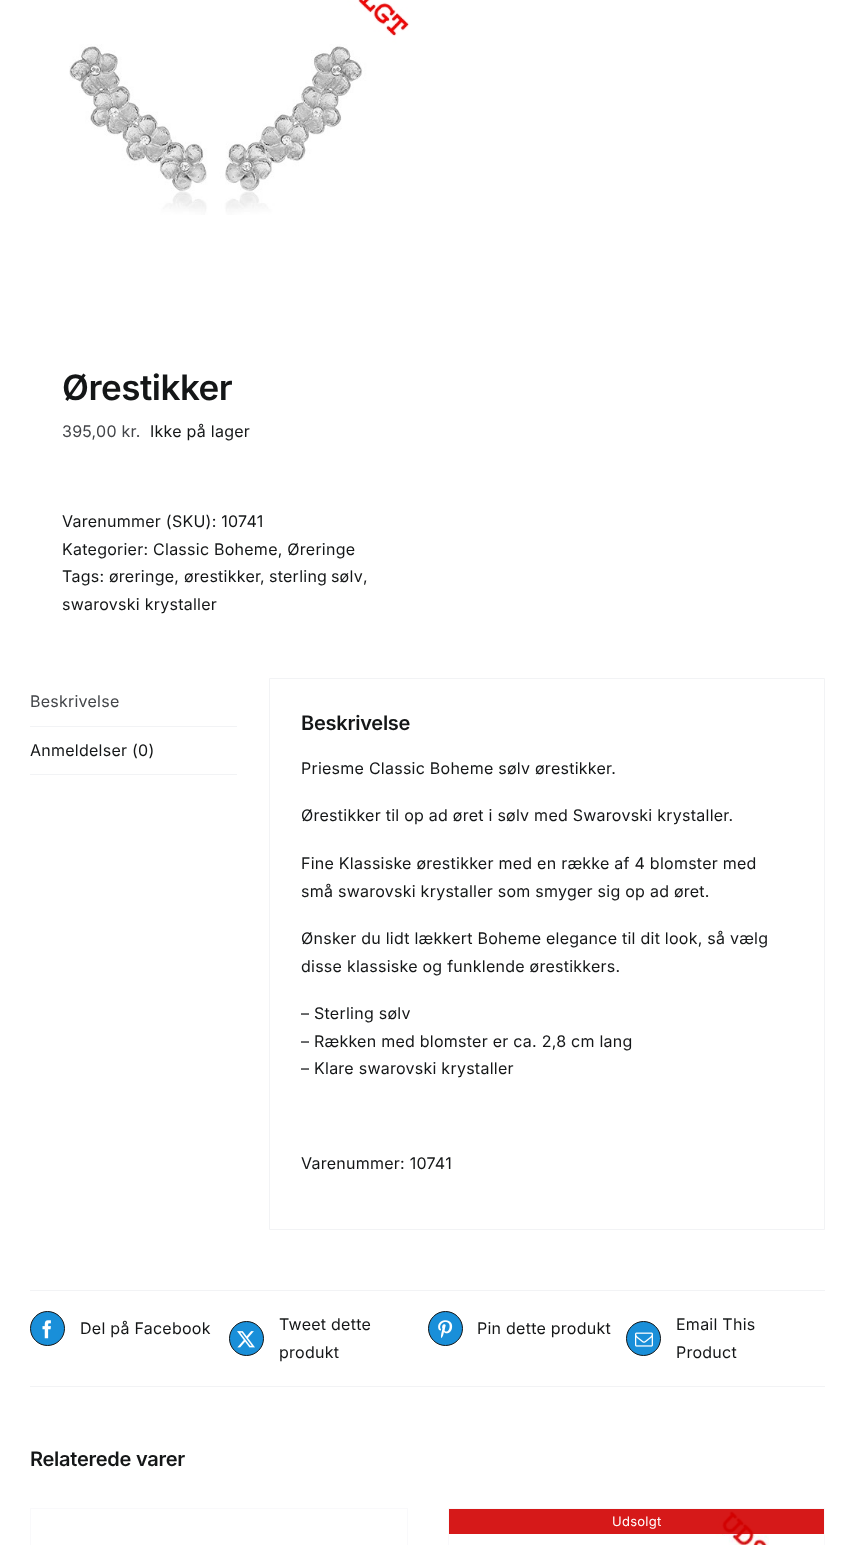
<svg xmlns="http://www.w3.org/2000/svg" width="855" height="1545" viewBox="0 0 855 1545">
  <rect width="100%" height="100%" fill="#fff"/>
  <image x="69" y="0" width="341" height="215" href="img/1.png"/>
  <path d="M30 726h207v1H30z" fill="#f2f3f5"/>
  <path d="M30 774h207v1H30z" fill="#f2f3f5"/>
  <path d="M269.5 678.5h555v551H269.5z" fill="none" stroke="#f2f3f5"/>
  <path d="M30 1290h795v1H30z" fill="#f2f3f5"/>
  <path d="M30 1386h795v1H30z" fill="#f2f3f5"/>
  <circle cx="47.5" cy="1328.5" r="17" fill="#198fd9" stroke="#141617"/>
  <image x="42" y="1320" width="9" height="19" href="img/2.png"/>
  <circle cx="246.5" cy="1338.5" r="17" fill="#198fd9" stroke="#141617"/>
  <image x="237" y="1331" width="18" height="17" href="img/3.png"/>
  <circle cx="445.5" cy="1328.5" r="17" fill="#198fd9" stroke="#141617"/>
  <image x="438" y="1320" width="15" height="19" href="img/4.png"/>
  <circle cx="643.5" cy="1338.5" r="17" fill="#198fd9" stroke="#141617"/>
  <image x="635" y="1332" width="18" height="15" href="img/5.png"/>
  <path d="M30 1508h378v1H30z" fill="#f9f9fb"/>
  <path d="M407 1508h1v37H407z" fill="#f9f9fb"/>
  <path d="M30 1508h1v37H30z" fill="#f9f9fb"/>
  <path d="M448 1508h377v1H448z" fill="#f9f9fb"/>
  <path d="M824 1508h1v37H824z" fill="#f9f9fb"/>
  <path d="M448 1508h1v37H448z" fill="#f9f9fb"/>
  <image x="715" y="1509" width="54" height="36" href="img/6.png"/>
  <path d="M449 1509h375v25H449z" fill="#d20000e6"/>
  <text x="62" y="400" font-family="Inter" font-size="35" font-weight="600" letter-spacing="-0.5" fill="#141617">Ørestikker</text>
  <text x="62" y="437" font-family="Inter" font-size="16" letter-spacing="0.25" fill="#434549">395,00 kr.</text>
  <g font-family="Inter" font-size="16" letter-spacing="0.25" fill="#141617">
    <text x="150" y="437">Ikke på lager</text>
    <text x="62" y="527">Varenummer (SKU): 10741</text>
    <text x="62" y="555">Kategorier: Classic Boheme, Øreringe</text>
    <text x="62" y="582">Tags: øreringe, ørestikker</text>
    <text x="260" y="582">,</text>
    <text x="269" y="582" word-spacing="-1">sterling sølv</text>
    <text x="363" y="582">,</text>
    <text x="62" y="610">swarovski krystaller</text>
  </g>
  <text x="30" y="707" font-family="Inter" font-size="16" letter-spacing="0.25" fill="#434549">Beskrivelse</text>
  <text x="30" y="756" font-family="Inter" font-size="16" letter-spacing="0.25" fill="#141617">Anmeldelser (0)</text>
  <text x="301" y="730" font-family="Inter" font-size="20" font-weight="600" letter-spacing="-0.25" fill="#141617">Beskrivelse</text>
  <g font-family="Inter" font-size="16" letter-spacing="0.25" fill="#141617">
    <text x="301" y="774">Priesme Classic Boheme sølv ørestikker.</text>
    <text x="301" y="821">Ørestikker til op ad øret i sølv med Swarovski krystaller.</text>
    <text x="301" y="869">Fine Klassiske ørestikker med en række af 4 blomster med</text>
    <text x="301" y="897">små swarovski krystaller som smyger sig op ad øret.</text>
    <text x="301" y="944">Ønsker du lidt lækkert Boheme elegance til dit look, så vælg</text>
    <text x="301" y="972">disse klassiske og funklende ørestikkers.</text>
    <text x="301" y="1019">– Sterling sølv</text>
    <text x="301" y="1047">– Rækken med blomster er ca. 2,8 cm lang</text>
    <text x="301" y="1074">– Klare swarovski krystaller</text>
    <text x="301" y="1169">Varenummer: 10741</text>
    <text x="80" y="1334">Del på Facebook</text>
    <text x="279" y="1330">Tweet dette</text>
    <text x="279" y="1358">produkt</text>
    <text x="477" y="1334">Pin dette produkt</text>
    <text x="676" y="1330">Email This</text>
    <text x="676" y="1358">Product</text>
  </g>
  <text x="30" y="1466" font-family="Inter" font-size="20" font-weight="600" letter-spacing="-0.25" fill="#141617">Relaterede varer</text>
  <text x="612" y="1526" font-family="Inter" font-size="13" letter-spacing="0.25" fill="#fff">Udsolgt</text>
</svg>
